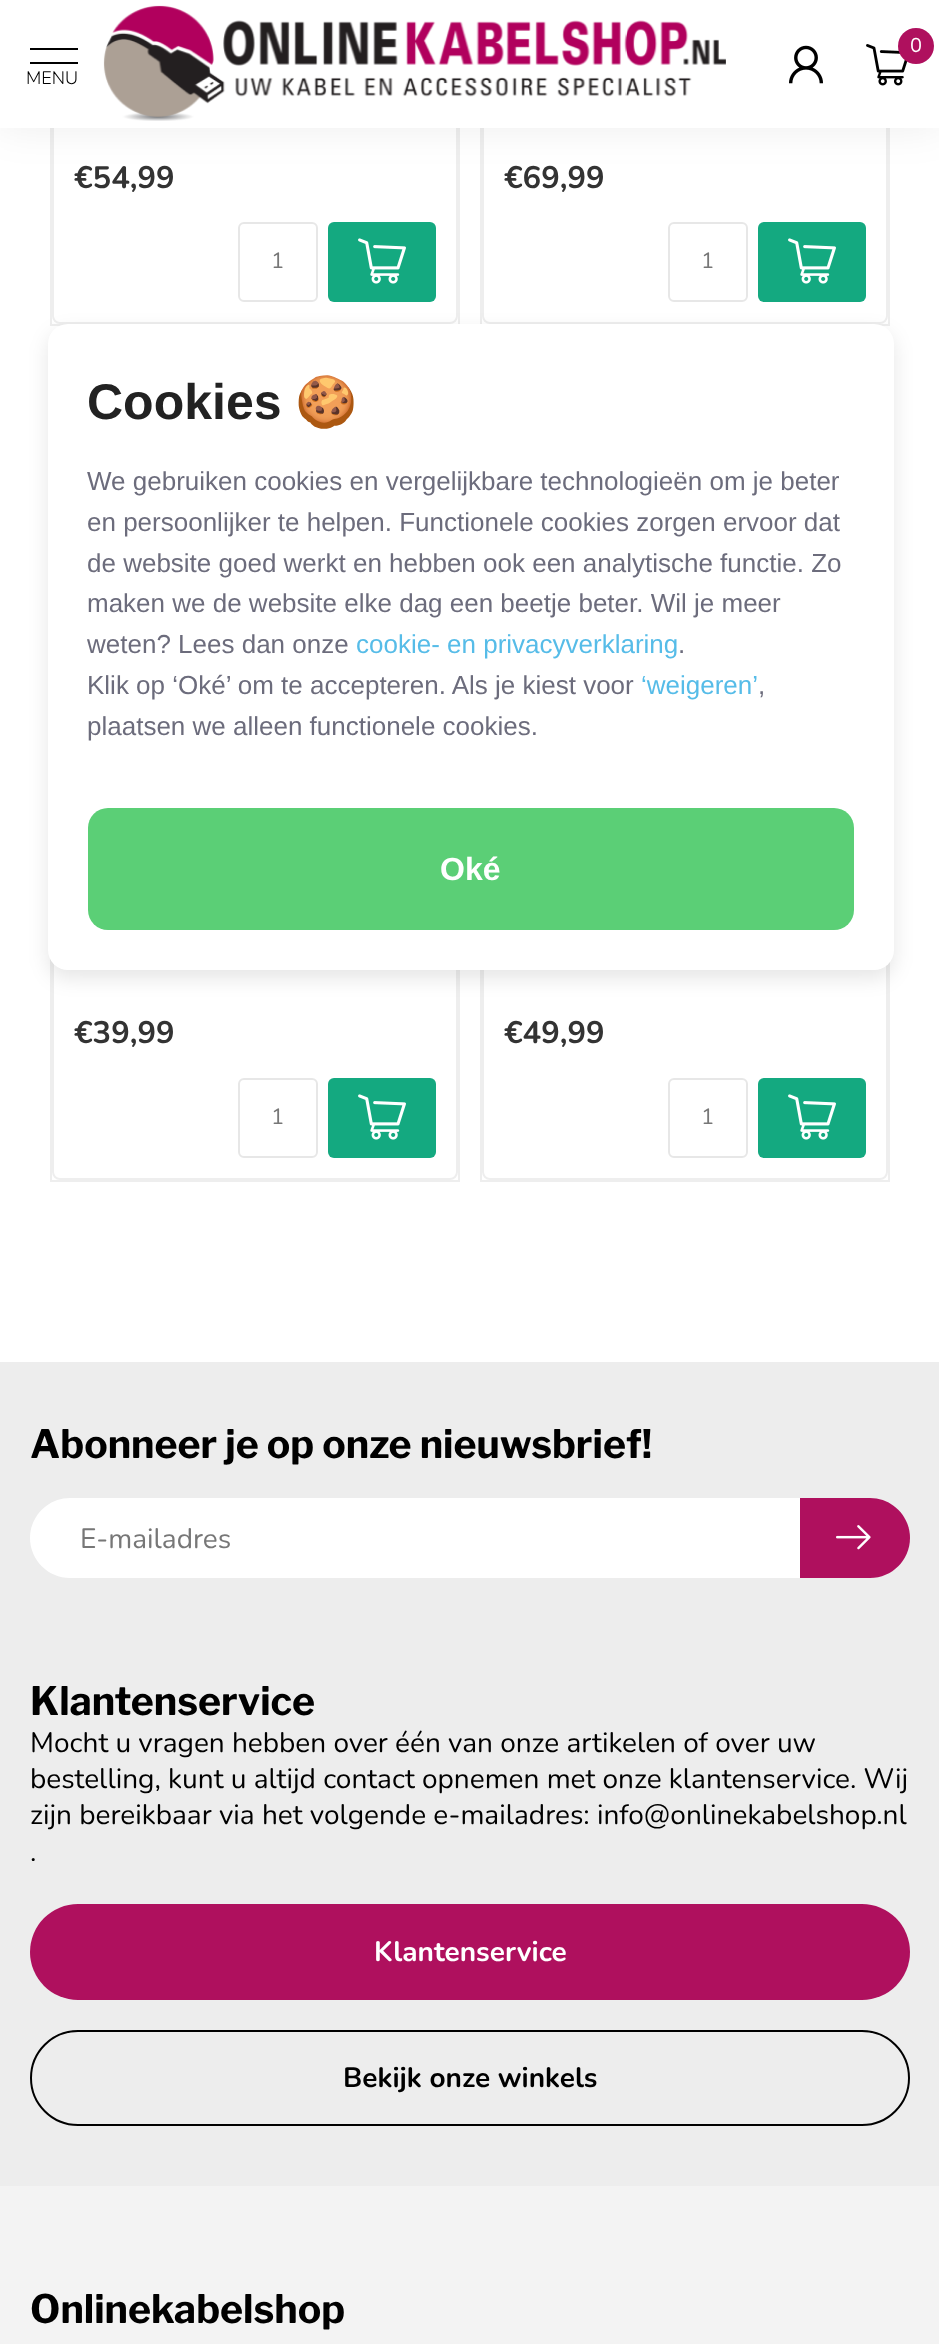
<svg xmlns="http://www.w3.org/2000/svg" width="939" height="2344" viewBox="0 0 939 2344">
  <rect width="100%" height="100%" fill="#fff"/>
  <path d="M51 -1h408v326H51z" fill="none" stroke="#eee" stroke-width="2"/>
  <rect x="53" y="-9" width="404" height="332" rx="7" fill="none" stroke="#eee" stroke-width="2"/>
  <path d="M481 -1h408v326H481z" fill="none" stroke="#eee" stroke-width="2"/>
  <rect x="483" y="-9" width="404" height="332" rx="7" fill="none" stroke="#eee" stroke-width="2"/>
  <path d="M0 -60h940v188H0z" fill="#00000012" filter="blur(20px)"/>
  <path d="M0 0h939v128H0z" fill="#fff"/>
  <image x="789" y="45" width="34" height="39" href="img/1.png"/>
  <image x="866" y="44" width="42" height="42" href="img/2.png"/>
  <circle cx="916" cy="46" r="18" fill="#af105e"/>
  <path d="M30 48h48v2H30z" fill="#000"/>
  <path d="M30 62h48v2H30z" fill="#000"/>
  <image x="103" y="5" width="623" height="116" href="img/3.png"/>
  <rect x="239" y="223" width="78" height="78" rx="5" fill="none" stroke="#e7e7e7" stroke-width="2"/>
  <rect x="328" y="222" width="108" height="80" rx="6" fill="#14a980"/>
  <image x="358" y="238" width="48" height="46" href="img/4.png"/>
  <rect x="669" y="223" width="78" height="78" rx="5" fill="none" stroke="#e7e7e7" stroke-width="2"/>
  <rect x="758" y="222" width="108" height="80" rx="6" fill="#14a980"/>
  <image x="788" y="238" width="48" height="46" href="img/4.png"/>
  <path d="M51 347h408v834H51z" fill="none" stroke="#eee" stroke-width="2"/>
  <rect x="53" y="349" width="404" height="830" rx="7" fill="none" stroke="#eee" stroke-width="2"/>
  <rect x="239" y="1079" width="78" height="78" rx="5" fill="none" stroke="#e7e7e7" stroke-width="2"/>
  <rect x="328" y="1078" width="108" height="80" rx="6" fill="#14a980"/>
  <image x="358" y="1094" width="48" height="46" href="img/4.png"/>
  <path d="M481 347h408v834H481z" fill="none" stroke="#eee" stroke-width="2"/>
  <rect x="483" y="349" width="404" height="830" rx="7" fill="none" stroke="#eee" stroke-width="2"/>
  <rect x="669" y="1079" width="78" height="78" rx="5" fill="none" stroke="#e7e7e7" stroke-width="2"/>
  <rect x="758" y="1078" width="108" height="80" rx="6" fill="#14a980"/>
  <image x="788" y="1094" width="48" height="46" href="img/4.png"/>
  <rect x="48" y="332" width="846" height="646" rx="20" fill="#0000001a" filter="blur(10px)"/>
  <rect x="48" y="324" width="846" height="646" rx="20" fill="#fff"/>
  <rect x="88" y="808" width="766" height="122" rx="20" fill="#5bcf76"/>
  <path d="M0 2186h939v158H0z" fill="#f3f3f3"/>
  <path d="M0 1362h939v824H0z" fill="#ededed"/>
  <path d="M70 1498H800V1578H70C48 1578 30 1560 30 1538C30 1516 48 1498 70 1498Z" fill="#fff"/>
  <path d="M800 1498H870C892 1498 910 1516 910 1538C910 1560 892 1578 870 1578H800Z" fill="#af105e"/>
  <image x="836" y="1525" width="35" height="25" href="img/5.png"/>
  <rect x="30" y="1904" width="880" height="96" rx="48" fill="#af105e"/>
  <rect x="31" y="2031" width="878" height="94" rx="47" fill="none" stroke="#000" stroke-width="2"/>
  <text x="910" y="52" font-family="Nunito" font-size="20" fill="#fff">0</text>
  <text x="26" y="84" font-family="Nunito" font-size="18" font-weight="300" fill="#000">MENU</text>
  <text x="74" y="188" font-family="Nunito" font-size="31" font-weight="bold" fill="#333">€54,99</text>
  <text x="271" y="268" font-family="Nunito" font-size="22" fill="#777">1</text>
  <text x="504" y="188" font-family="Nunito" font-size="31" font-weight="bold" fill="#333">€69,99</text>
  <text x="701" y="268" font-family="Nunito" font-size="22" fill="#777">1</text>
  <text x="74" y="1043" font-family="Nunito" font-size="31" font-weight="bold" fill="#333">€39,99</text>
  <text x="271" y="1124" font-family="Nunito" font-size="22" fill="#777">1</text>
  <text x="504" y="1043" font-family="Nunito" font-size="31" font-weight="bold" fill="#333">€49,99</text>
  <text x="701" y="1124" font-family="Nunito" font-size="22" fill="#777">1</text>
  <text x="87" y="419" font-family="Liberation Sans" font-size="50" font-weight="bold" fill="#222">Cookies</text>
  <text x="295" y="419" font-family="Noto Color Emoji" font-size="50" font-weight="bold" fill="#222">🍪</text>
  <g font-family="Liberation Sans" font-size="26" fill="#6c6c7c">
    <text x="87" y="490">We gebruiken cookies en vergelijkbare technologieën om je beter</text>
    <text x="87" y="531">en persoonlijker te helpen. Functionele cookies zorgen ervoor dat</text>
    <text x="87" y="572">de website goed werkt en hebben ook een analytische functie. Zo</text>
    <text x="87" y="612">maken we de website elke dag een beetje beter. Wil je meer</text>
    <text x="87" y="653">weten? Lees dan onze</text>
  </g>
  <text x="356" y="653" font-family="Liberation Sans" font-size="26" fill="#56bce8">cookie- en privacyverklaring</text>
  <g font-family="Liberation Sans" font-size="26" fill="#6c6c7c">
    <text x="678" y="653">.</text>
    <text x="87" y="694">Klik op ‘Oké’ om te accepteren. Als je kiest voor</text>
  </g>
  <text x="641" y="694" font-family="Liberation Sans" font-size="26" fill="#56bce8">‘weigeren’</text>
  <g font-family="Liberation Sans" font-size="26" fill="#6c6c7c">
    <text x="758" y="694">,</text>
    <text x="87" y="735">plaatsen we alleen functionele cookies.</text>
  </g>
  <text x="440" y="880" font-family="Liberation Sans" font-size="32" font-weight="bold" fill="#fff">Oké</text>
  <text x="30" y="1458" font-family="Libre Franklin" font-size="39.25" font-weight="bold" fill="#000">Abonneer je op onze nieuwsbrief!</text>
  <text x="80" y="1548" font-family="Nunito" font-size="28" fill="#777">E-mailadres</text>
  <text x="30" y="1715" font-family="Libre Franklin" font-size="39.25" font-weight="bold" fill="#000">Klantenservice</text>
  <g font-family="Nunito" font-size="28" fill="#000">
    <text x="30" y="1752">Mocht u vragen hebben over één van onze artikelen of over uw</text>
    <text x="30" y="1788">bestelling, kunt u altijd contact opnemen met onze klantenservice. Wij</text>
    <text x="30" y="1824">zijn bereikbaar via het volgende e-mailadres: info@onlinekabelshop.nl</text>
    <text x="30" y="1861">.</text>
  </g>
  <text x="374" y="1961" font-family="Nunito" font-size="28" font-weight="bold" fill="#fff">Klantenservice</text>
  <text x="343" y="2087" font-family="Nunito" font-size="28" font-weight="bold" fill="#000">Bekijk onze winkels</text>
  <text x="30" y="2323" font-family="Libre Franklin" font-size="39.25" font-weight="bold" fill="#000">Onlinekabelshop</text>
</svg>
